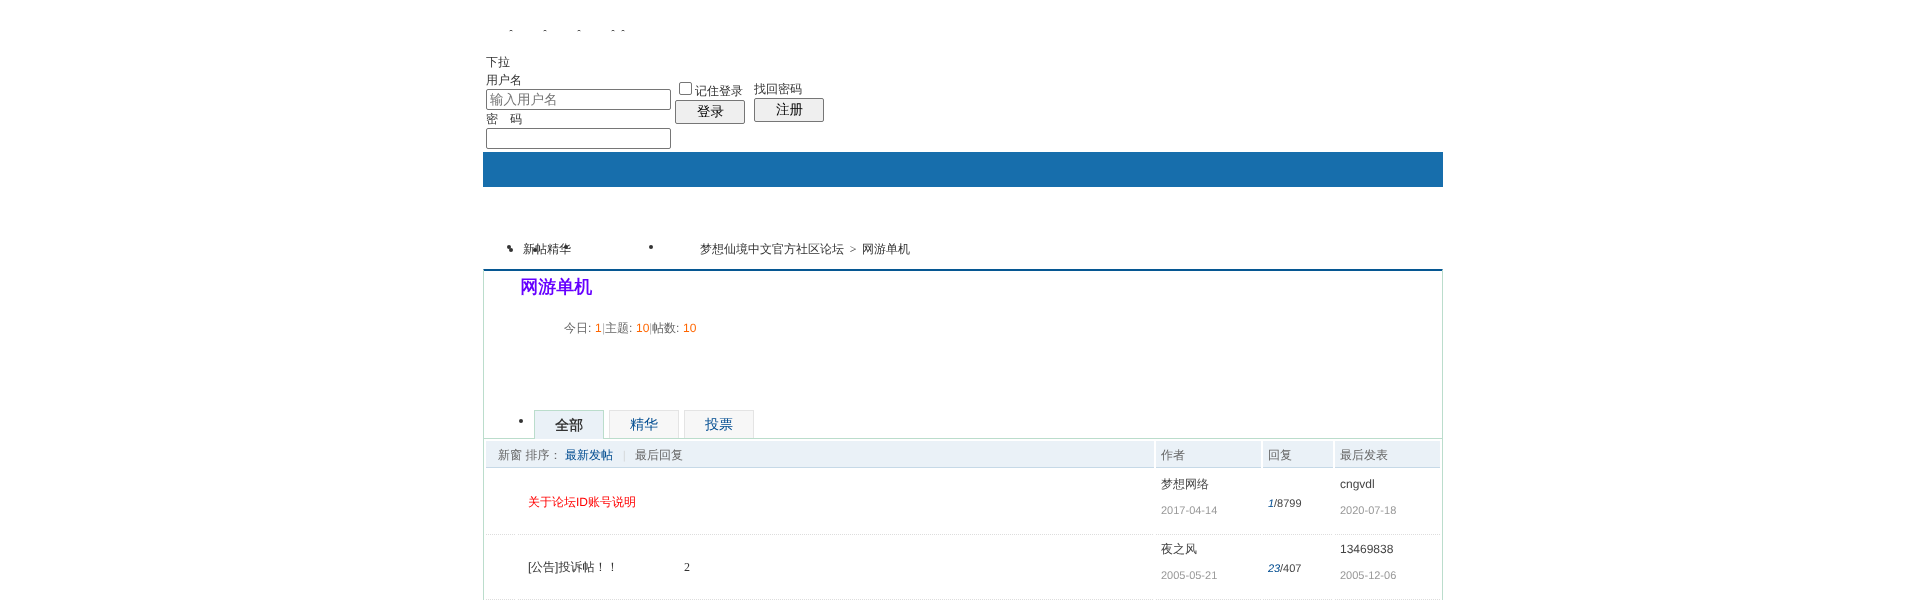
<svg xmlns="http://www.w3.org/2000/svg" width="1926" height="600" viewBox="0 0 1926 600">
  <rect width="100%" height="100%" fill="#fff"/>
  <path d="M511 30C512 30 513 31 513 32V31H509V32C509 31 510 30 511 30Z" fill="#333"/>
  <path d="M545 30C546 30 547 31 547 32V31H543V32C543 31 544 30 545 30Z" fill="#333"/>
  <path d="M579 30C580 30 581 31 581 32V31H577V32C577 31 578 30 579 30Z" fill="#333"/>
  <path d="M613 30C614 30 615 31 615 32V31H611V32C611 31 612 30 613 30Z" fill="#333"/>
  <path d="M623 30C624 30 625 31 625 32V31H621V32C621 31 622 30 623 30Z" fill="#333"/>
  <rect x="486.5" y="89.5" width="184" height="20" rx="1.5" fill="none" stroke="#767676"/>
  <rect x="486.5" y="128.5" width="184" height="20" rx="1.5" fill="none" stroke="#767676"/>
  <rect x="679.5" y="82.5" width="12" height="12" rx="1.5" fill="none" stroke="#767676"/>
  <rect x="675.5" y="100.5" width="69" height="23" rx="1.5" fill="#efefef" stroke="#767676"/>
  <rect x="754.5" y="98.5" width="69" height="23" rx="1.5" fill="#efefef" stroke="#767676"/>
  <path d="M483 152h960v35H483z" fill="#176eac"/>
  <circle cx="511" cy="250" r="2" fill="#333"/>
  <circle cx="509" cy="247" r="2" fill="#333"/>
  <circle cx="566" cy="247" r="2" fill="#333"/>
  <circle cx="651" cy="247" r="2" fill="#333"/>
  <circle cx="535" cy="250" r="2" fill="#333"/>
  <path d="M483 269H1443L1442 271H484Z" fill="#065792"/>
  <path d="M1443 269V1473L1442 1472V271Z" fill="#bdc"/>
  <path d="M483 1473V269L484 271V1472Z" fill="#bdc"/>
  <path d="M484 438h958v1H484z" fill="#bdc"/>
  <circle cx="521" cy="421" r="2" fill="#333"/>
  <path d="M535 411h68v28H535z" fill="#eaf1f7"/>
  <path d="M534 410h70v1H534z" fill="#bdc"/>
  <path d="M603 410h1v29H603z" fill="#bdc"/>
  <path d="M534 410h1v29H534z" fill="#bdc"/>
  <path d="M610 411h68v27H610z" fill="#f7f7f7"/>
  <path d="M609 410h70v1H609z" fill="#e4e4e4"/>
  <path d="M678 410h1v28H678z" fill="#e4e4e4"/>
  <path d="M609 410h1v28H609z" fill="#e4e4e4"/>
  <path d="M685 411h68v27H685z" fill="#f7f7f7"/>
  <path d="M684 410h70v1H684z" fill="#e4e4e4"/>
  <path d="M753 410h1v28H753z" fill="#e4e4e4"/>
  <path d="M684 410h1v28H684z" fill="#e4e4e4"/>
  <path d="M486 441h668v26H486z" fill="#eaf1f7"/>
  <path d="M486 467h668v1H486z" fill="#c6d9e7"/>
  <path d="M1156 441h105v26H1156z" fill="#eaf1f7"/>
  <path d="M1156 467h105v1H1156z" fill="#c6d9e7"/>
  <path d="M1263 441h70v26H1263z" fill="#eaf1f7"/>
  <path d="M1263 467h70v1H1263z" fill="#c6d9e7"/>
  <path d="M1335 441h105v26H1335z" fill="#eaf1f7"/>
  <path d="M1335 467h105v1H1335z" fill="#c6d9e7"/>
  <path d="M518 534.5H1154" fill="none" stroke="#ddd" stroke-dasharray="1 1"/>
  <path d="M1156 534.5H1261" fill="none" stroke="#ddd" stroke-dasharray="1 1"/>
  <path d="M1263 534.5H1333" fill="none" stroke="#ddd" stroke-dasharray="1 1"/>
  <path d="M1335 534.5H1440" fill="none" stroke="#ddd" stroke-dasharray="1 1"/>
  <path d="M486 534.5H516" fill="none" stroke="#ddd" stroke-dasharray="1 1"/>
  <path d="M518 599.5H1154" fill="none" stroke="#ddd" stroke-dasharray="1 1"/>
  <path d="M1156 599.5H1261" fill="none" stroke="#ddd" stroke-dasharray="1 1"/>
  <path d="M1263 599.5H1333" fill="none" stroke="#ddd" stroke-dasharray="1 1"/>
  <path d="M1335 599.5H1440" fill="none" stroke="#ddd" stroke-dasharray="1 1"/>
  <path d="M486 599.5H516" fill="none" stroke="#ddd" stroke-dasharray="1 1"/>
  <g font-family="WenQuanYi Zen Hei" font-size="12" font-weight="500" fill="#333">
    <text x="486" y="66">下拉</text>
    <text x="486" y="84">用户名</text>
  </g>
  <text x="490" y="104" font-family="WenQuanYi Zen Hei" font-size="13.5" font-weight="500" fill="#757575">输入用户名</text>
  <g font-family="WenQuanYi Zen Hei" font-size="12" font-weight="500" fill="#333">
    <text x="486" y="123">密　码</text>
    <text x="695" y="95">记住登录</text>
  </g>
  <text x="697" y="116" font-family="WenQuanYi Zen Hei" font-size="13.5" font-weight="500" fill="#000">登录</text>
  <text x="754" y="93" font-family="WenQuanYi Zen Hei" font-size="12" font-weight="500" fill="#333">找回密码</text>
  <text x="776" y="114" font-family="WenQuanYi Zen Hei" font-size="13.5" font-weight="500" fill="#000">注册</text>
  <g font-family="WenQuanYi Zen Hei" font-size="12" font-weight="500" fill="#333">
    <text x="523" y="253">新帖精华</text>
    <text x="700" y="253">梦想仙境中文官方社区论坛</text>
  </g>
  <text x="849" y="253" font-family="Liberation Serif" font-size="12" font-style="italic" fill="#333">&gt;</text>
  <text x="862" y="253" font-family="WenQuanYi Zen Hei" font-size="12" font-weight="500" fill="#333">网游单机</text>
  <text x="520" y="293" font-family="WenQuanYi Zen Hei" font-size="18" font-weight="bold" fill="#60f">网游单机</text>
  <text x="564" y="332" font-family="WenQuanYi Zen Hei" font-size="12" font-weight="500" fill="#666">今日</text>
  <text x="588" y="332" font-family="Liberation Sans" font-size="12" fill="#666">:</text>
  <text x="595" y="332" font-family="Liberation Sans" font-size="12" fill="#f60">1</text>
  <text x="602" y="332" font-family="Liberation Sans" font-size="12" fill="#bbb">|</text>
  <text x="605" y="332" font-family="WenQuanYi Zen Hei" font-size="12" font-weight="500" fill="#666">主题</text>
  <text x="629" y="332" font-family="Liberation Sans" font-size="12" fill="#666">:</text>
  <text x="636" y="332" font-family="Liberation Sans" font-size="12" fill="#f60">10</text>
  <text x="649" y="332" font-family="Liberation Sans" font-size="12" fill="#bbb">|</text>
  <text x="652" y="332" font-family="WenQuanYi Zen Hei" font-size="12" font-weight="500" fill="#666">帖数</text>
  <text x="676" y="332" font-family="Liberation Sans" font-size="12" fill="#666">:</text>
  <text x="683" y="332" font-family="Liberation Sans" font-size="12" fill="#f60">10</text>
  <text x="555" y="430" font-family="WenQuanYi Zen Hei" font-size="14" font-weight="bold" fill="#333">全部</text>
  <g font-family="WenQuanYi Zen Hei" font-size="14" font-weight="500" fill="#014c90">
    <text x="630" y="429">精华</text>
    <text x="705" y="429">投票</text>
  </g>
  <text x="498" y="459" font-family="WenQuanYi Zen Hei" font-size="12" font-weight="500" fill="#666">新窗 排序：</text>
  <text x="565" y="459" font-family="WenQuanYi Zen Hei" font-size="12" font-weight="500" fill="#014c90">最新发帖</text>
  <text x="623" y="459" font-family="Liberation Serif" font-size="12" fill="#ccc">|</text>
  <g font-family="WenQuanYi Zen Hei" font-size="12" font-weight="500" fill="#666">
    <text x="635" y="459">最后回复</text>
    <text x="1161" y="459">作者</text>
    <text x="1268" y="459">回复</text>
    <text x="1340" y="459">最后发表</text>
  </g>
  <text x="528" y="506" font-family="WenQuanYi Zen Hei" font-size="12" font-weight="500" fill="#f00">关于论坛</text>
  <text x="576" y="506" font-family="Liberation Sans" font-size="12" fill="#f00">ID</text>
  <text x="588" y="506" font-family="WenQuanYi Zen Hei" font-size="12" font-weight="500" fill="#f00">账号说明</text>
  <text x="1161" y="488" font-family="WenQuanYi Zen Hei" font-size="12" font-weight="500" fill="#444">梦想网络</text>
  <text x="1161" y="514" font-family="Liberation Sans" font-size="11" fill="#999">2017-04-14</text>
  <text x="1268" y="507" font-family="Liberation Sans" font-size="11" font-style="italic" fill="#014c90">1</text>
  <text x="1274" y="507" font-family="Liberation Sans" font-size="11" fill="#444">/8799</text>
  <text x="1340" y="488" font-family="Liberation Sans" font-size="12" fill="#444">cngvdl</text>
  <text x="1340" y="514" font-family="Liberation Sans" font-size="11" fill="#999">2020-07-18</text>
  <text x="528" y="571" font-family="Liberation Sans" font-size="12" fill="#333">[</text>
  <text x="531" y="571" font-family="WenQuanYi Zen Hei" font-size="12" font-weight="500" fill="#333">公告 投诉帖！！</text>
  <text x="555" y="571" font-family="Liberation Sans" font-size="12" fill="#333">]</text>
  <text x="684" y="571" font-family="Liberation Serif" font-size="12" fill="#333">2</text>
  <text x="1161" y="553" font-family="WenQuanYi Zen Hei" font-size="12" font-weight="500" fill="#444">夜之风</text>
  <text x="1161" y="579" font-family="Liberation Sans" font-size="11" fill="#999">2005-05-21</text>
  <text x="1268" y="572" font-family="Liberation Sans" font-size="11" font-style="italic" fill="#014c90">23</text>
  <text x="1280" y="572" font-family="Liberation Sans" font-size="11" fill="#444">/407</text>
  <text x="1340" y="553" font-family="Liberation Sans" font-size="12" fill="#444">13469838</text>
  <text x="1340" y="579" font-family="Liberation Sans" font-size="11" fill="#999">2005-12-06</text>
</svg>
